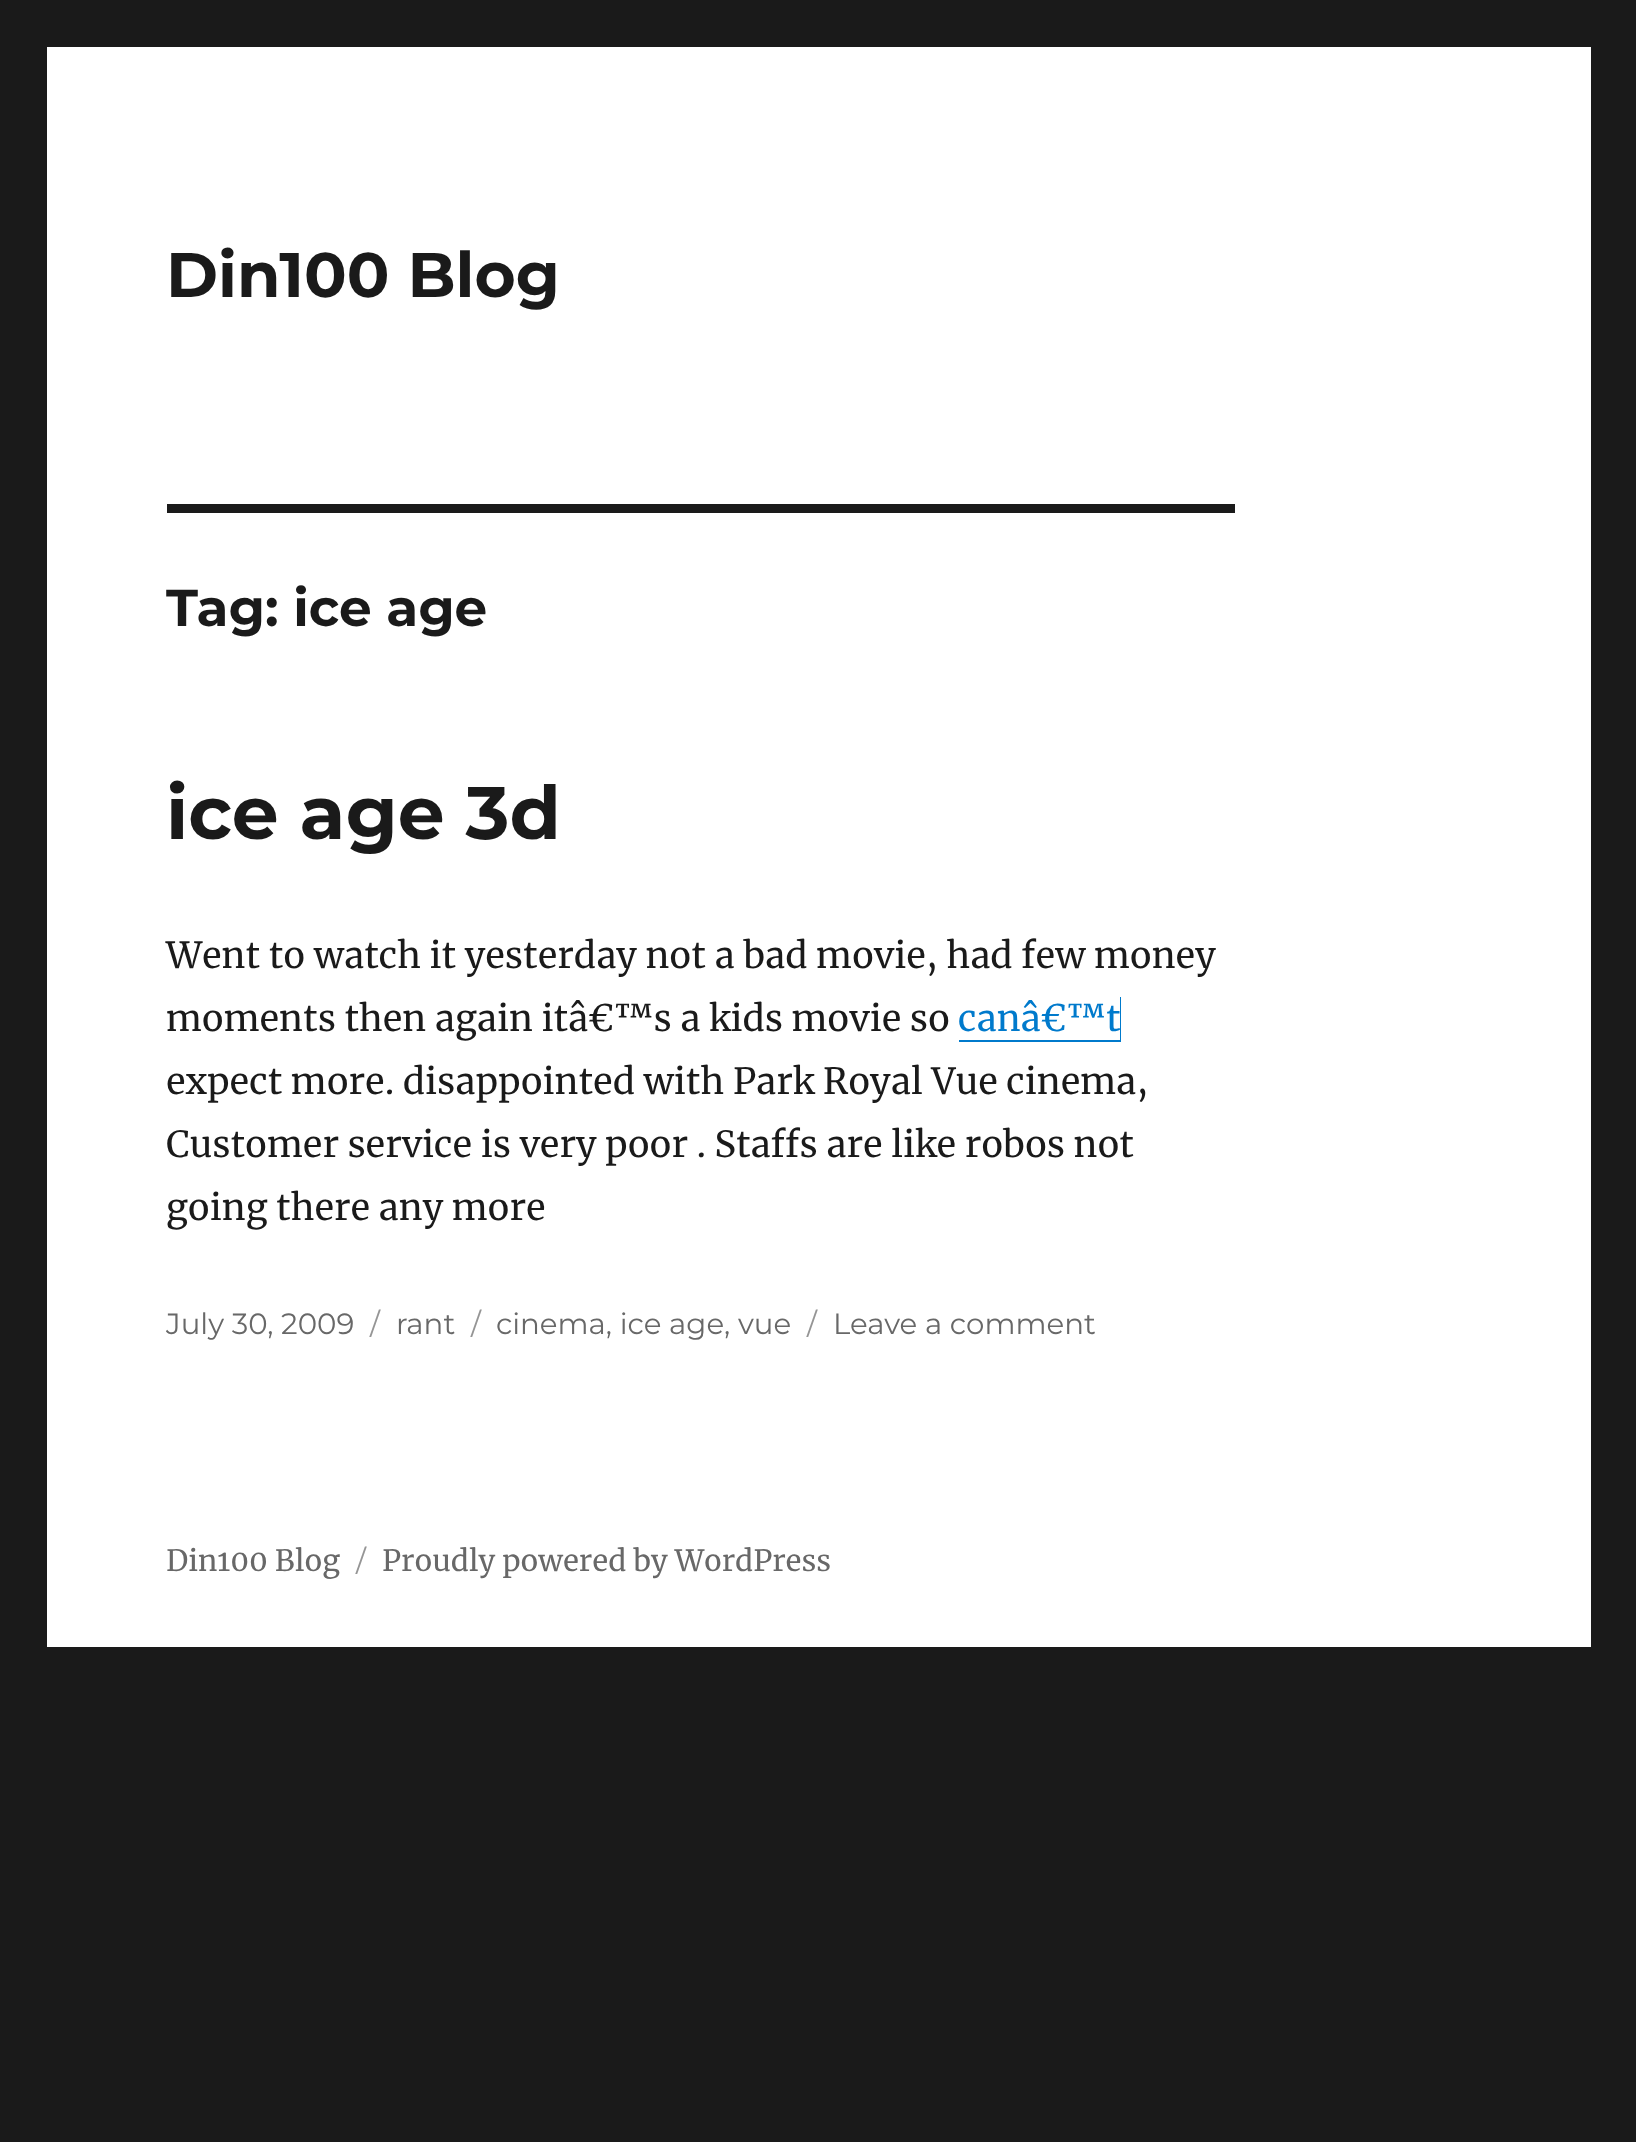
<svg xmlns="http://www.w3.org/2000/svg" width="1636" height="2142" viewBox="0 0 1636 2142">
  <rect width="100%" height="100%" fill="#1a1a1a"/>
  <path d="M47 47h1544v1600H47z" fill="#fff"/>
  <path d="M167 504h1068v9H167z" fill="#1a1a1a"/>
  <path d="M959 1040V1042H1121V997H1120V1040Z" fill="#007acc"/>
  <text x="166" y="297" font-family="Montserrat" font-size="63" font-weight="100" fill="#1a1a1a">Din100 Blog</text>
  <text x="166" y="626" font-family="Montserrat" font-size="51.75" font-weight="100" fill="#1a1a1a">Tag: ice age</text>
  <text x="166" y="839" font-family="Montserrat" font-size="74.25" font-weight="100" fill="#1a1a1a">ice age 3d</text>
  <g font-family="Merriweather" font-size="36" fill="#1a1a1a">
    <text x="166" y="968">Went to watch it yesterday not a bad movie, had few money</text>
    <text x="166" y="1031">moments then again itâ€™s a kids movie so</text>
  </g>
  <text x="958" y="1031" font-family="Merriweather" font-size="36" fill="#007acc">canâ€™t</text>
  <g font-family="Merriweather" font-size="36" fill="#1a1a1a">
    <text x="166" y="1094">expect more. disappointed with Park Royal Vue cinema,</text>
    <text x="166" y="1157">Customer service is very poor . Staffs are like robos not</text>
    <text x="166" y="1220">going there any more</text>
  </g>
  <text x="166" y="1334" font-family="'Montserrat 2'" font-size="29.25" font-weight="100" fill="#686868">July 30, 2009</text>
  <text x="370" y="1334" font-family="'Montserrat 2'" font-size="29.25" font-weight="100" fill="#959595">/</text>
  <text x="396" y="1334" font-family="'Montserrat 2'" font-size="29.25" font-weight="100" fill="#686868">rant</text>
  <text x="471" y="1334" font-family="'Montserrat 2'" font-size="29.25" font-weight="100" fill="#959595">/</text>
  <text x="496" y="1334" font-family="'Montserrat 2'" font-size="29.25" font-weight="100" fill="#686868">cinema, ice age, vue</text>
  <text x="807" y="1334" font-family="'Montserrat 2'" font-size="29.25" font-weight="100" fill="#959595">/</text>
  <text x="833" y="1334" font-family="'Montserrat 2'" font-size="29.25" font-weight="100" fill="#686868">Leave a comment</text>
  <text x="166" y="1571" font-family="Merriweather" font-size="29.25" fill="#686868">Din100 Blog</text>
  <text x="356" y="1571" font-family="'Montserrat 2'" font-size="29.25" font-weight="100" fill="#959595">/</text>
  <text x="382" y="1571" font-family="Merriweather" font-size="29.25" fill="#686868">Proudly powered by WordPress</text>
</svg>
